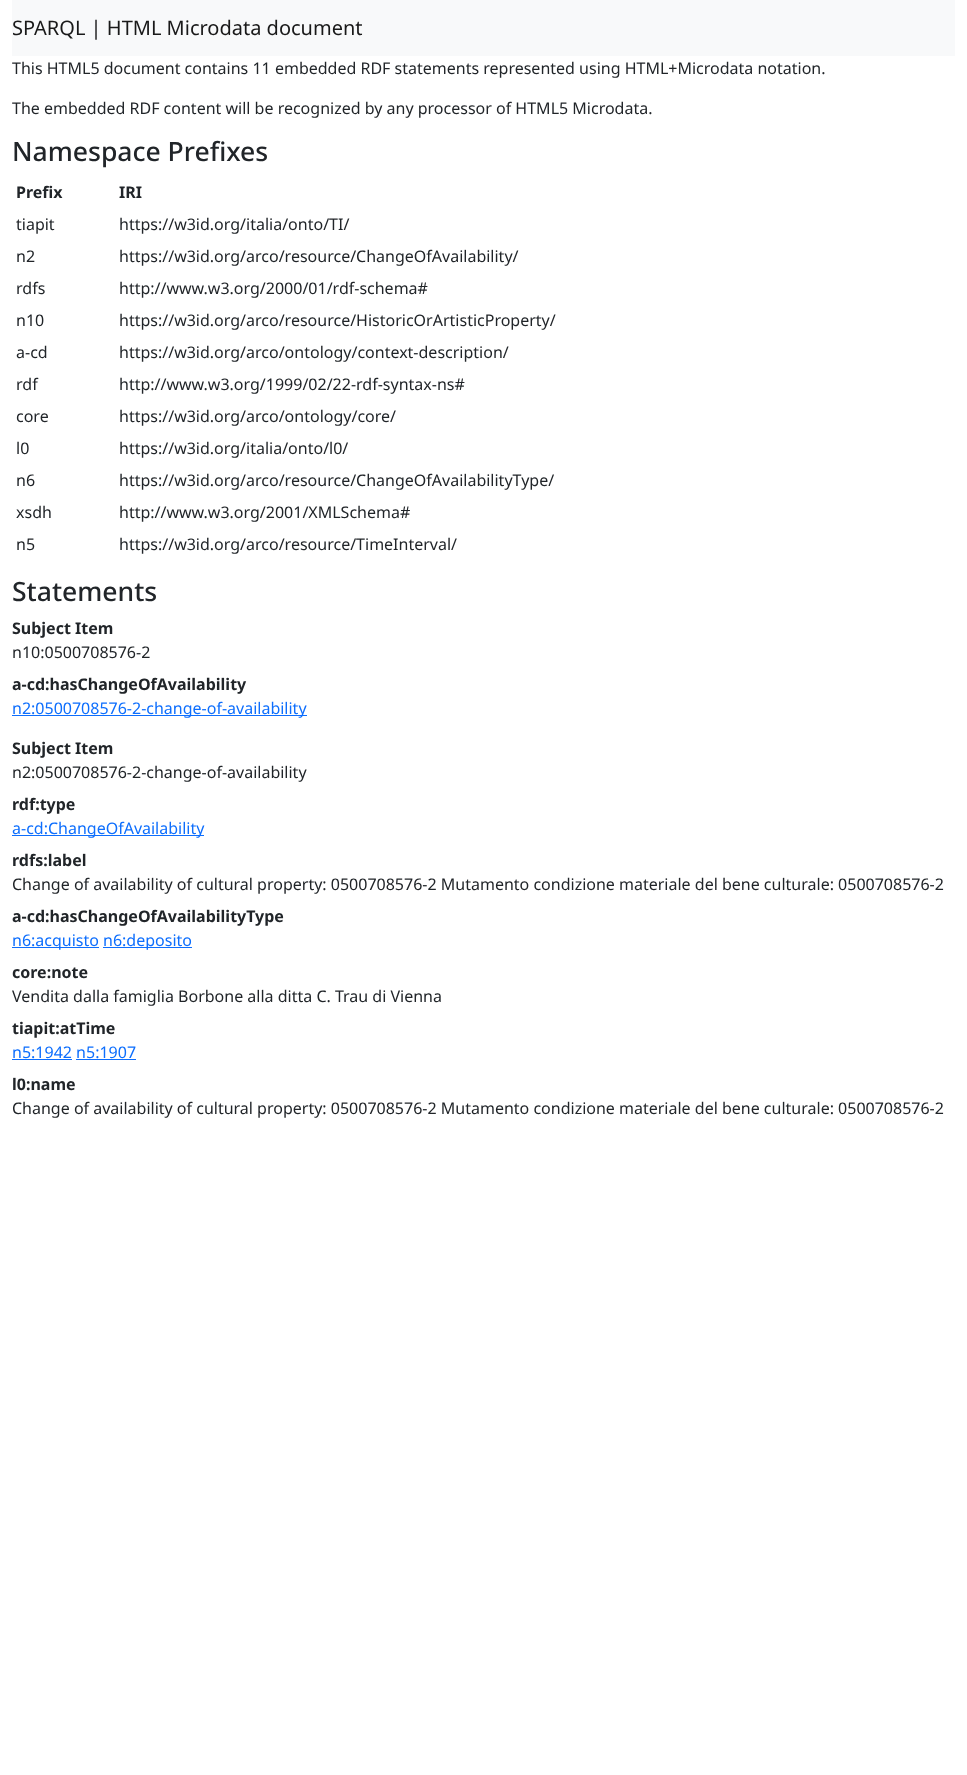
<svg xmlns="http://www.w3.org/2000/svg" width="967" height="1775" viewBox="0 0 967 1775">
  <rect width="100%" height="100%" fill="#fff"/>
  <path d="M12 0h943v56H12z" fill="#f8f9fa"/>
  <path d="M12 715h295v1H12z" fill="#0d6efd"/>
  <path d="M12 835h192v1H12z" fill="#0d6efd"/>
  <path d="M12 947h87v1H12z" fill="#0d6efd"/>
  <path d="M103 947h89v1H103z" fill="#0d6efd"/>
  <path d="M12 1059h60v1H12z" fill="#0d6efd"/>
  <path d="M76 1059h60v1H76z" fill="#0d6efd"/>
  <text x="12" y="35" font-family="Noto Sans" font-size="20" fill="#191919">SPARQL | HTML Microdata document</text>
  <g font-family="Noto Sans" font-size="16" fill="#212529">
    <text x="12" y="74">This HTML5 document contains 11 embedded RDF statements represented using HTML+Microdata notation.</text>
    <text x="12" y="114">The embedded RDF content will be recognized by any processor of HTML5 Microdata.</text>
  </g>
  <text x="12" y="161" font-family="Noto Sans" font-size="26.5" font-weight="500" fill="#212529">Namespace Prefixes</text>
  <g font-family="Noto Sans" font-size="16" font-weight="bold" fill="#212529">
    <text x="16" y="198">Prefix</text>
    <text x="119" y="198">IRI</text>
  </g>
  <g font-family="Noto Sans" font-size="16" fill="#212529">
    <text x="16" y="230">tiapit</text>
    <text x="119" y="230">https://w3id.org/italia/onto/TI/</text>
    <text x="16" y="262">n2</text>
    <text x="119" y="262">https://w3id.org/arco/resource/ChangeOfAvailability/</text>
    <text x="16" y="294">rdfs</text>
    <text x="119" y="294">http://www.w3.org/2000/01/rdf-schema#</text>
    <text x="16" y="326">n10</text>
    <text x="119" y="326">https://w3id.org/arco/resource/HistoricOrArtisticProperty/</text>
    <text x="16" y="358">a-cd</text>
    <text x="119" y="358">https://w3id.org/arco/ontology/context-description/</text>
    <text x="16" y="390">rdf</text>
    <text x="119" y="390">http://www.w3.org/1999/02/22-rdf-syntax-ns#</text>
    <text x="16" y="422">core</text>
    <text x="119" y="422">https://w3id.org/arco/ontology/core/</text>
    <text x="16" y="454">l0</text>
    <text x="119" y="454">https://w3id.org/italia/onto/l0/</text>
    <text x="16" y="486">n6</text>
    <text x="119" y="486">https://w3id.org/arco/resource/ChangeOfAvailabilityType/</text>
    <text x="16" y="518">xsdh</text>
    <text x="119" y="518">http://www.w3.org/2001/XMLSchema#</text>
    <text x="16" y="550">n5</text>
    <text x="119" y="550">https://w3id.org/arco/resource/TimeInterval/</text>
  </g>
  <text x="12" y="601" font-family="Noto Sans" font-size="26.5" font-weight="500" fill="#212529">Statements</text>
  <text x="12" y="634" font-family="Noto Sans" font-size="16" font-weight="bold" fill="#212529">Subject Item</text>
  <text x="12" y="658" font-family="Noto Sans" font-size="16" fill="#212529">n10:0500708576-2</text>
  <text x="12" y="690" font-family="Noto Sans" font-size="16" font-weight="bold" fill="#212529">a-cd:hasChangeOfAvailability</text>
  <text x="12" y="714" font-family="Noto Sans" font-size="16" fill="#0d6efd">n2:0500708576-2-change-of-availability</text>
  <text x="12" y="754" font-family="Noto Sans" font-size="16" font-weight="bold" fill="#212529">Subject Item</text>
  <text x="12" y="778" font-family="Noto Sans" font-size="16" fill="#212529">n2:0500708576-2-change-of-availability</text>
  <text x="12" y="810" font-family="Noto Sans" font-size="16" font-weight="bold" fill="#212529">rdf:type</text>
  <text x="12" y="834" font-family="Noto Sans" font-size="16" fill="#0d6efd">a-cd:ChangeOfAvailability</text>
  <text x="12" y="866" font-family="Noto Sans" font-size="16" font-weight="bold" fill="#212529">rdfs:label</text>
  <text x="12" y="890" font-family="Noto Sans" font-size="16" fill="#212529">Change of availability of cultural property: 0500708576-2 Mutamento condizione materiale del bene culturale: 0500708576-2</text>
  <text x="12" y="922" font-family="Noto Sans" font-size="16" font-weight="bold" fill="#212529">a-cd:hasChangeOfAvailabilityType</text>
  <g font-family="Noto Sans" font-size="16" fill="#0d6efd">
    <text x="12" y="946">n6:acquisto</text>
    <text x="103" y="946">n6:deposito</text>
  </g>
  <text x="12" y="978" font-family="Noto Sans" font-size="16" font-weight="bold" fill="#212529">core:note</text>
  <text x="12" y="1002" font-family="Noto Sans" font-size="16" fill="#212529">Vendita dalla famiglia Borbone alla ditta C. Trau di Vienna</text>
  <text x="12" y="1034" font-family="Noto Sans" font-size="16" font-weight="bold" fill="#212529">tiapit:atTime</text>
  <text x="12" y="1058" font-family="Noto Sans" font-size="16" fill="#0d6efd">n5:1942 n5:1907</text>
  <text x="12" y="1090" font-family="Noto Sans" font-size="16" font-weight="bold" fill="#212529">l0:name</text>
  <text x="12" y="1114" font-family="Noto Sans" font-size="16" fill="#212529">Change of availability of cultural property: 0500708576-2 Mutamento condizione materiale del bene culturale: 0500708576-2</text>
</svg>
